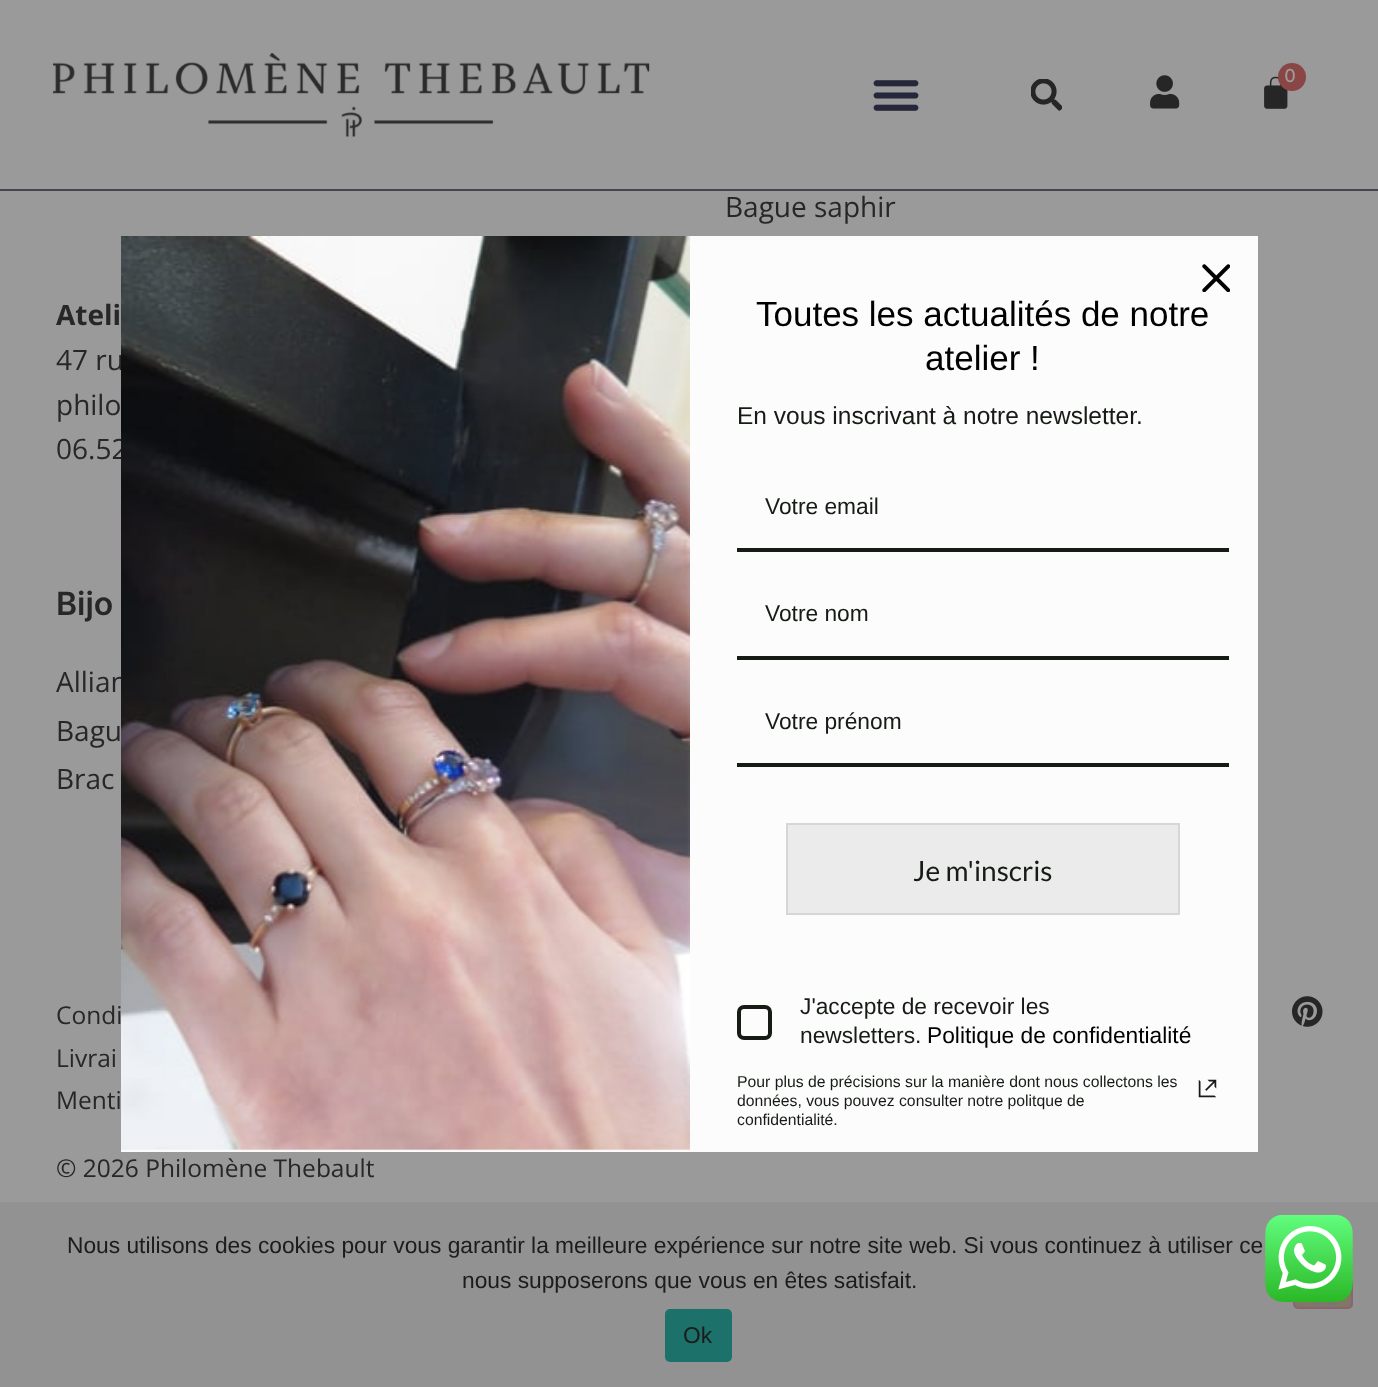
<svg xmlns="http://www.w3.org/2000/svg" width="1378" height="1387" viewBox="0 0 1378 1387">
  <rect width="100%" height="100%" fill="#9a9a9a"/>
  <path d="M0 189h1378v2H0z" fill="#45464d"/>
  <image x="53" y="53" width="597" height="84" href="img/1.png"/>
  <image x="1031" y="79" width="31" height="32" href="img/2.png"/>
  <image x="1150" y="75" width="30" height="34" href="img/3.png"/>
  <image x="1264" y="76" width="24" height="33" href="img/4.png"/>
  <circle cx="1292" cy="77" r="14" fill="#894644"/>
  <image x="873" y="80" width="46" height="31" href="img/5.png"/>
  <image x="1292" y="996" width="31" height="31" href="img/6.png"/>
  <path d="M0 1202h1378v185H0z" fill="#929292"/>
  <rect x="1294" y="1279" width="58" height="29" rx="4" fill="#817765" stroke="#8a6471" stroke-width="2"/>
  <path d="M1333 1287L1335.5 1289.5L1316.5 1308L1314 1305.5Z" fill="#777"/>
  <path d="M1314 1289.5L1316.5 1287L1335.5 1305.5L1333 1308Z" fill="#777"/>
  <rect x="665" y="1309" width="67" height="53" rx="5" fill="#1c716b"/>
  <image x="1265" y="1215" width="88" height="87" href="img/10.png"/>
  <text x="1284" y="82" font-family="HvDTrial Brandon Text" font-size="18" font-weight="bold" letter-spacing="3" fill="#9c9c9c">0</text>
  <text x="725" y="217" font-family="Open Sans" font-size="28" fill="#272727">Bague saphir</text>
  <text x="56" y="325" font-family="Open Sans" font-size="28" font-weight="bold" fill="#272727">Ateli</text>
  <g font-family="Open Sans" font-size="28" fill="#272727">
    <text x="56" y="370">47 ru</text>
    <text x="56" y="415">philo</text>
    <text x="56" y="459">06.52</text>
  </g>
  <text x="56" y="615" font-family="Inter" font-size="32" font-weight="600" fill="#272727">Bijo</text>
  <g font-family="Open Sans" font-size="28" fill="#272727">
    <text x="56" y="692">Allian</text>
    <text x="56" y="741">Bagu</text>
    <text x="56" y="789">Brac</text>
  </g>
  <g font-family="Open Sans" font-size="24.5" fill="#272727">
    <text x="56" y="1024">Condi</text>
    <text x="56" y="1067">Livrai</text>
    <text x="56" y="1109">Menti</text>
    <text x="56" y="1177">© 2026 Philomène Thebault</text>
  </g>
  <path d="M121 236h1137v916H121z" fill="#fcfcfc"/>
  <image x="1202" y="264" width="28" height="28" href="img/7.png"/>
  <image x="121" y="236" width="569" height="915" href="img/8.png"/>
  <g font-family="Liberation Sans" font-size="35" fill="#000">
    <text x="756" y="326">Toutes les actualités de notre</text>
    <text x="925" y="370">atelier !</text>
  </g>
  <text x="737" y="424" font-family="Liberation Sans" font-size="24.5" fill="#161c15">En vous inscrivant à notre newsletter.</text>
  <path d="M737 548h492v4H737z" fill="#161c15"/>
  <text x="765" y="514" font-family="Liberation Sans" font-size="22.75" fill="#161c15">Votre email</text>
  <path d="M737 656h492v4H737z" fill="#161c15"/>
  <text x="765" y="621" font-family="Liberation Sans" font-size="22.75" fill="#161c15">Votre nom</text>
  <path d="M737 763h492v4H737z" fill="#161c15"/>
  <text x="765" y="729" font-family="Liberation Sans" font-size="22.75" fill="#161c15">Votre prénom</text>
  <path d="M787 824h392v90H787z" fill="#ebebeb" stroke="#d6d6d6" stroke-width="2"/>
  <text x="913" y="881" font-family="Lato" font-size="28" fill="#161c15">Je m'inscris</text>
  <rect x="739" y="1007" width="31" height="31" rx="5" fill="none" stroke="#161c15" stroke-width="4"/>
  <g font-family="Liberation Sans" font-size="22.75" fill="#161c15">
    <text x="800" y="1014">J'accepte de recevoir les</text>
    <text x="800" y="1043">newsletters.</text>
  </g>
  <text x="927" y="1043" font-family="Liberation Sans" font-size="22.75" fill="#000">Politique de confidentialité</text>
  <g font-family="Liberation Sans" font-size="15.75" fill="#161c15">
    <text x="737" y="1087">Pour plus de précisions sur la manière dont nous collectons les</text>
    <text x="737" y="1106">données, vous pouvez consulter notre politque de</text>
    <text x="737" y="1125">confidentialité.</text>
  </g>
  <image x="1198" y="1079" width="19" height="19" href="img/9.png"/>
  <g font-family="Liberation Sans" font-size="22.75" fill="#1c1c1c">
    <text x="67" y="1253">Nous utilisons des cookies pour vous garantir la meilleure expérience sur notre site web. Si vous continuez à utiliser ce</text>
    <text x="462" y="1288">nous supposerons que vous en êtes satisfait.</text>
    <text x="683" y="1343">Ok</text>
  </g>
</svg>
